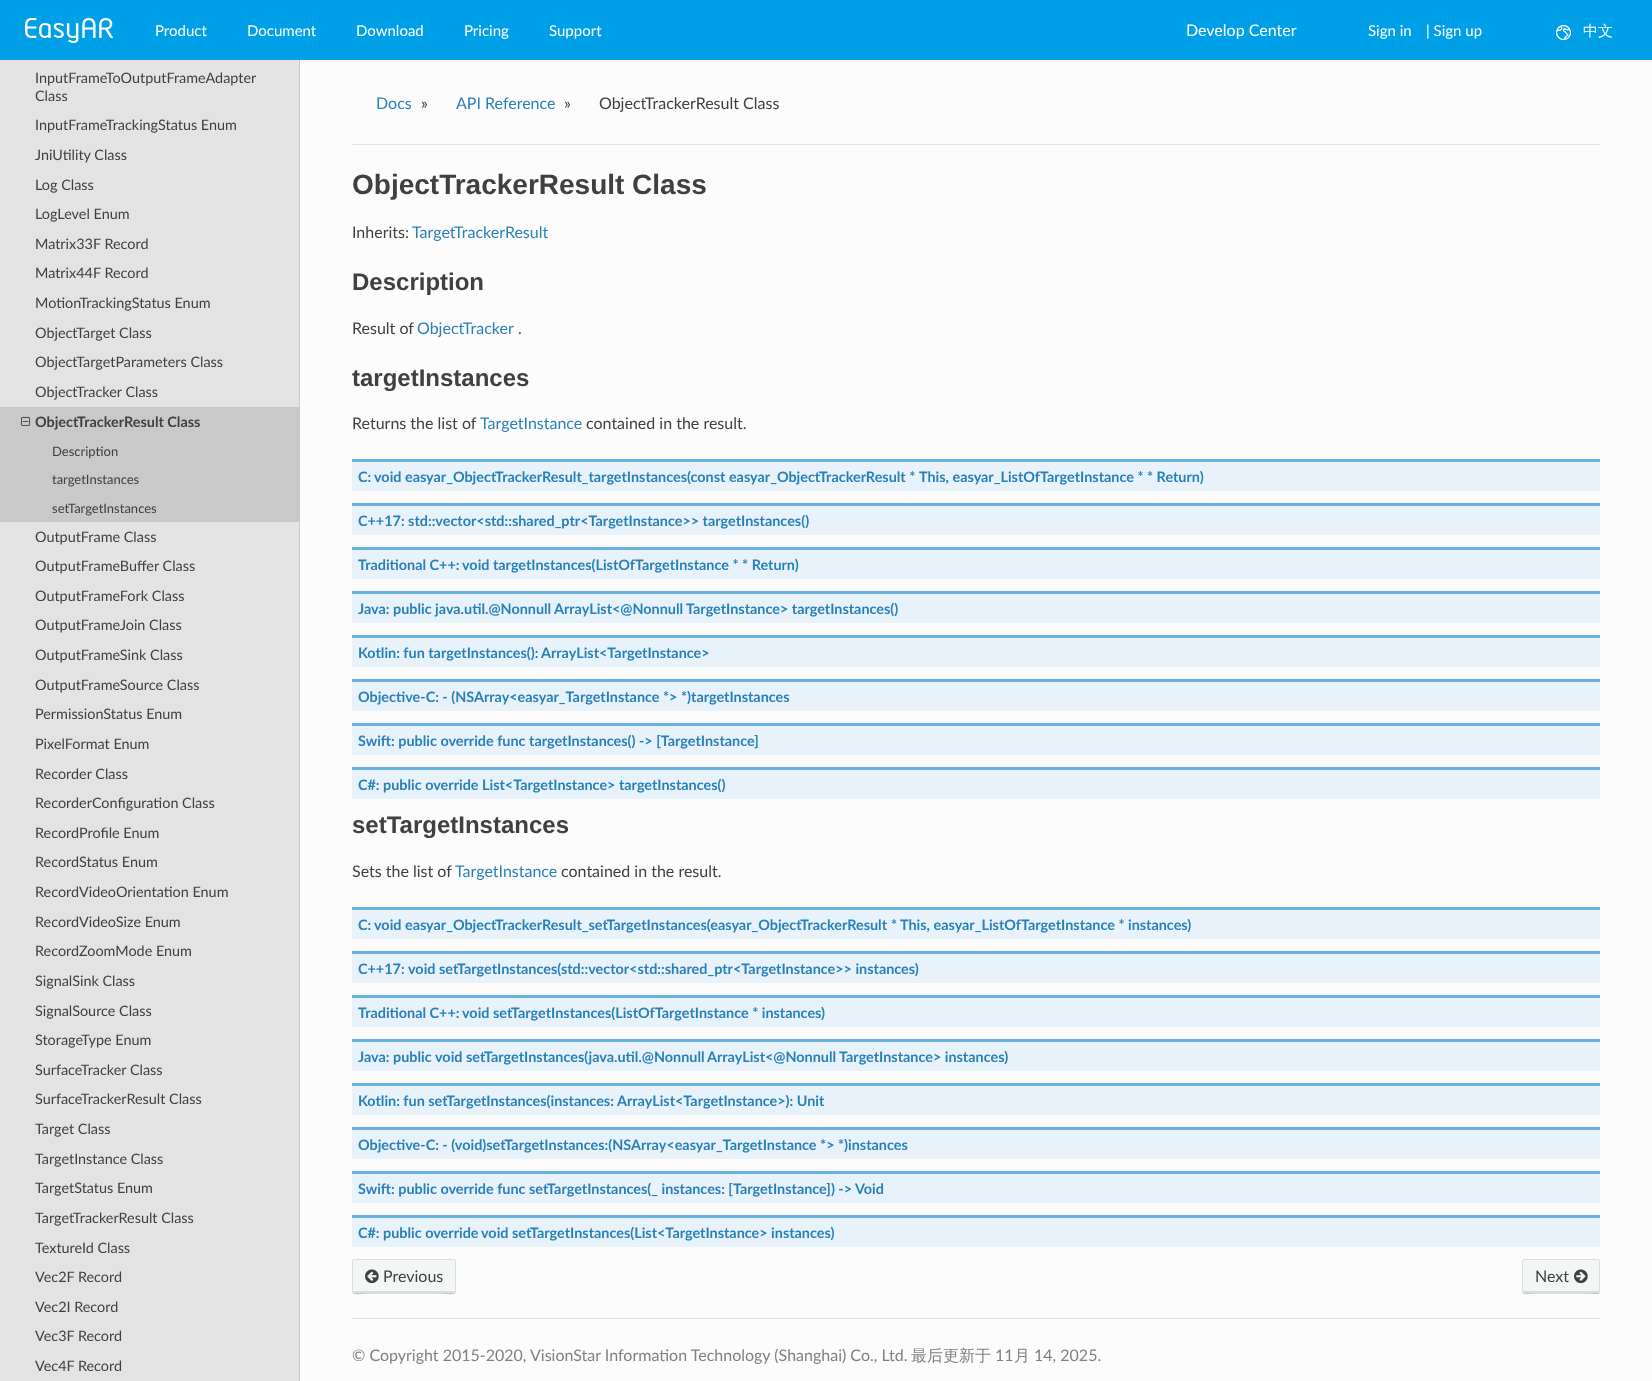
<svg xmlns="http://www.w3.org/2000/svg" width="1652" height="1381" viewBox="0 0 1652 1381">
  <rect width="100%" height="100%" fill="#00a0e9"/>
  <image x="25" y="18" width="88" height="25" href="img/1.png"/>
  <image x="1556" y="25" width="15" height="15" href="img/2.png"/>
  <path d="M0 60h299v1321H0z" fill="#e3e3e3"/>
  <path d="M299 60h1v347H299z" fill="#c9c9c9"/>
  <path d="M0 407h300v115H0z" fill="#c9c9c9"/>
  <image x="21" y="416" width="10" height="10" href="img/3.png"/>
  <path d="M299 522h1v859H299z" fill="#c9c9c9"/>
  <path d="M300 60h1352v1321H300z" fill="#fcfcfc"/>
  <path d="M352 144h1248v1H352z" fill="#e1e4e5"/>
  <path d="M352 462h1248v29H352z" fill="#e7f2fa"/>
  <path d="M352 459h1248v3H352z" fill="#6ab0de"/>
  <path d="M352 506h1248v29H352z" fill="#e7f2fa"/>
  <path d="M352 503h1248v3H352z" fill="#6ab0de"/>
  <path d="M352 550h1248v29H352z" fill="#e7f2fa"/>
  <path d="M352 547h1248v3H352z" fill="#6ab0de"/>
  <path d="M352 594h1248v29H352z" fill="#e7f2fa"/>
  <path d="M352 591h1248v3H352z" fill="#6ab0de"/>
  <path d="M352 638h1248v29H352z" fill="#e7f2fa"/>
  <path d="M352 635h1248v3H352z" fill="#6ab0de"/>
  <path d="M352 682h1248v29H352z" fill="#e7f2fa"/>
  <path d="M352 679h1248v3H352z" fill="#6ab0de"/>
  <path d="M352 726h1248v29H352z" fill="#e7f2fa"/>
  <path d="M352 723h1248v3H352z" fill="#6ab0de"/>
  <path d="M352 770h1248v29H352z" fill="#e7f2fa"/>
  <path d="M352 767h1248v3H352z" fill="#6ab0de"/>
  <path d="M352 910h1248v29H352z" fill="#e7f2fa"/>
  <path d="M352 907h1248v3H352z" fill="#6ab0de"/>
  <path d="M352 954h1248v29H352z" fill="#e7f2fa"/>
  <path d="M352 951h1248v3H352z" fill="#6ab0de"/>
  <path d="M352 998h1248v29H352z" fill="#e7f2fa"/>
  <path d="M352 995h1248v3H352z" fill="#6ab0de"/>
  <path d="M352 1042h1248v29H352z" fill="#e7f2fa"/>
  <path d="M352 1039h1248v3H352z" fill="#6ab0de"/>
  <path d="M352 1086h1248v29H352z" fill="#e7f2fa"/>
  <path d="M352 1083h1248v3H352z" fill="#6ab0de"/>
  <path d="M352 1130h1248v29H352z" fill="#e7f2fa"/>
  <path d="M352 1127h1248v3H352z" fill="#6ab0de"/>
  <path d="M352 1174h1248v29H352z" fill="#e7f2fa"/>
  <path d="M352 1171h1248v3H352z" fill="#6ab0de"/>
  <path d="M352 1218h1248v29H352z" fill="#e7f2fa"/>
  <path d="M352 1215h1248v3H352z" fill="#6ab0de"/>
  <rect x="352" y="1259" width="104" height="35" rx="2" fill="#f3f6f6"/>
  <path d="M353 1290C353 1298 361 1293 371 1293H437C447 1293 455 1298 455 1290C455 1291 455 1291 454 1291H354C353 1291 353 1291 353 1290Z" fill="#dbdddd"/>
  <rect x="352.5" y="1259.5" width="103" height="34" rx="1.5" fill="none" stroke="#0000001a"/>
  <image x="365" y="1269" width="14" height="15" href="img/4.png"/>
  <rect x="1522" y="1259" width="78" height="35" rx="2" fill="#f3f6f6"/>
  <path d="M1523 1290C1523 1297 1528 1293 1536 1293H1586C1594 1293 1599 1297 1599 1290C1599 1291 1599 1291 1598 1291H1523Z" fill="#dbdddd"/>
  <rect x="1522.5" y="1259.5" width="77" height="34" rx="1.5" fill="none" stroke="#0000001a"/>
  <image x="1574" y="1269" width="14" height="15" href="img/5.png"/>
  <path d="M352 1318h1248v1H352z" fill="#e1e4e5"/>
  <g font-family="Lato" font-size="15" fill="#fff">
    <text x="155" y="36">Product</text>
    <text x="247" y="36">Document</text>
    <text x="356" y="36">Download</text>
    <text x="464" y="36">Pricing</text>
    <text x="549" y="36">Support</text>
  </g>
  <text x="1186" y="36" font-family="Lato" font-size="16" fill="#fff">Develop Center</text>
  <g font-family="Lato" font-size="15" fill="#fff">
    <text x="1368" y="36">Sign in</text>
    <text x="1426" y="36">| Sign up</text>
  </g>
  <text x="1583" y="36" font-family="WenQuanYi Zen Hei" font-size="15" font-weight="500" fill="#fff">中文</text>
  <g font-family="Lato" font-size="14.4" fill="#404040">
    <text x="35" y="83">InputFrameToOutputFrameAdapter</text>
    <text x="35" y="101">Class</text>
    <text x="35" y="130">InputFrameTrackingStatus Enum</text>
    <text x="35" y="160">JniUtility Class</text>
    <text x="35" y="190">Log Class</text>
    <text x="35" y="219">LogLevel Enum</text>
    <text x="35" y="249">Matrix33F Record</text>
    <text x="35" y="278">Matrix44F Record</text>
    <text x="35" y="308">MotionTrackingStatus Enum</text>
    <text x="35" y="338">ObjectTarget Class</text>
    <text x="35" y="367">ObjectTargetParameters Class</text>
    <text x="35" y="397">ObjectTracker Class</text>
  </g>
  <text x="35" y="427" font-family="Lato" font-size="14.4" font-weight="bold" fill="#404040">ObjectTrackerResult Class</text>
  <g font-family="Lato" font-size="13" fill="#404040">
    <text x="52" y="456">Description</text>
    <text x="52" y="484">targetInstances</text>
    <text x="52" y="513">setTargetInstances</text>
  </g>
  <g font-family="Lato" font-size="14.4" fill="#404040">
    <text x="35" y="542">OutputFrame Class</text>
    <text x="35" y="571">OutputFrameBuffer Class</text>
    <text x="35" y="601">OutputFrameFork Class</text>
    <text x="35" y="630">OutputFrameJoin Class</text>
    <text x="35" y="660">OutputFrameSink Class</text>
    <text x="35" y="690">OutputFrameSource Class</text>
    <text x="35" y="719">PermissionStatus Enum</text>
    <text x="35" y="749">PixelFormat Enum</text>
    <text x="35" y="779">Recorder Class</text>
    <text x="35" y="808">RecorderConfiguration Class</text>
    <text x="35" y="838">RecordProfile Enum</text>
    <text x="35" y="867">RecordStatus Enum</text>
    <text x="35" y="897">RecordVideoOrientation Enum</text>
    <text x="35" y="927">RecordVideoSize Enum</text>
    <text x="35" y="956">RecordZoomMode Enum</text>
    <text x="35" y="986">SignalSink Class</text>
    <text x="35" y="1016">SignalSource Class</text>
    <text x="35" y="1045">StorageType Enum</text>
    <text x="35" y="1075">SurfaceTracker Class</text>
    <text x="35" y="1104">SurfaceTrackerResult Class</text>
    <text x="35" y="1134">Target Class</text>
    <text x="35" y="1164">TargetInstance Class</text>
    <text x="35" y="1193">TargetStatus Enum</text>
    <text x="35" y="1223">TargetTrackerResult Class</text>
    <text x="35" y="1253">TextureId Class</text>
    <text x="35" y="1282">Vec2F Record</text>
    <text x="35" y="1312">Vec2I Record</text>
    <text x="35" y="1341">Vec3F Record</text>
    <text x="35" y="1371">Vec4F Record</text>
  </g>
  <text x="376" y="109" font-family="Lato" font-size="16" fill="#2980b9">Docs</text>
  <text x="421" y="109" font-family="Lato" font-size="16" fill="#404040">»</text>
  <text x="456" y="109" font-family="Lato" font-size="16" fill="#2980b9">API Reference</text>
  <g font-family="Lato" font-size="16" fill="#404040">
    <text x="564" y="109">»</text>
    <text x="599" y="109">ObjectTrackerResult Class</text>
  </g>
  <text x="352" y="194" font-family="Liberation Sans" font-size="28" font-weight="bold" fill="#404040">ObjectTrackerResult Class</text>
  <text x="352" y="238" font-family="Lato" font-size="16" fill="#404040">Inherits:</text>
  <text x="412" y="238" font-family="Lato" font-size="16" fill="#2980b9">TargetTrackerResult</text>
  <text x="352" y="290" font-family="Liberation Sans" font-size="24" font-weight="bold" fill="#404040">Description</text>
  <text x="352" y="334" font-family="Lato" font-size="16" fill="#404040">Result of</text>
  <text x="417" y="334" font-family="Lato" font-size="16" fill="#2980b9">ObjectTracker</text>
  <text x="518" y="334" font-family="Lato" font-size="16" fill="#404040">.</text>
  <text x="352" y="386" font-family="Liberation Sans" font-size="24" font-weight="bold" fill="#404040">targetInstances</text>
  <text x="352" y="429" font-family="Lato" font-size="16" fill="#404040">Returns the list of</text>
  <text x="480" y="429" font-family="Lato" font-size="16" fill="#2980b9">TargetInstance</text>
  <text x="586" y="429" font-family="Lato" font-size="16" fill="#404040">contained in the result.</text>
  <g font-family="Lato" font-size="14.4" font-weight="bold" fill="#2980b9">
    <text x="358" y="482">C:</text>
    <text x="374" y="482">void easyar_ObjectTrackerResult_targetInstances(const easyar_ObjectTrackerResult *</text>
    <text x="919" y="482">This, easyar_ListOfTargetInstance * * Return)</text>
    <text x="358" y="526">C++17: std::vector&lt;std::shared_ptr&lt;TargetInstance&gt;&gt; targetInstances()</text>
    <text x="358" y="570">Traditional C++:</text>
    <text x="462" y="570">void targetInstances(ListOfTargetInstance * * Return)</text>
    <text x="358" y="614">Java: public java.util.@Nonnull</text>
    <text x="554" y="614">ArrayList&lt;@Nonnull</text>
    <text x="686" y="614">TargetInstance&gt; targetInstances()</text>
    <text x="358" y="658">Kotlin: fun targetInstances():</text>
    <text x="541" y="658">ArrayList&lt;TargetInstance&gt;</text>
    <text x="358" y="702">Objective-C: - (NSArray&lt;easyar_TargetInstance *&gt; *)targetInstances</text>
    <text x="358" y="746">Swift: public override func targetInstances() -&gt; [TargetInstance]</text>
    <text x="358" y="790">C#: public override List&lt;TargetInstance&gt; targetInstances()</text>
  </g>
  <text x="352" y="833" font-family="Liberation Sans" font-size="24" font-weight="bold" fill="#404040">setTargetInstances</text>
  <text x="352" y="877" font-family="Lato" font-size="16" fill="#404040">Sets the list of</text>
  <text x="455" y="877" font-family="Lato" font-size="16" fill="#2980b9">TargetInstance</text>
  <text x="561" y="877" font-family="Lato" font-size="16" fill="#404040">contained in the result.</text>
  <g font-family="Lato" font-size="14.4" font-weight="bold" fill="#2980b9">
    <text x="358" y="930">C:</text>
    <text x="374" y="930">void easyar_ObjectTrackerResult_setTargetInstances(easyar_ObjectTrackerResult</text>
    <text x="891" y="930">*</text>
    <text x="900" y="930">This, easyar_ListOfTargetInstance * instances)</text>
    <text x="358" y="974">C++17:</text>
    <text x="408" y="974">void setTargetInstances(std::vector&lt;std::shared_ptr&lt;TargetInstance&gt;&gt; instances)</text>
    <text x="358" y="1018">Traditional C++:</text>
    <text x="462" y="1018">void setTargetInstances(ListOfTargetInstance * instances)</text>
    <text x="358" y="1062">Java: public</text>
    <text x="435" y="1062">void setTargetInstances(java.util.@Nonnull</text>
    <text x="707" y="1062">ArrayList&lt;@Nonnull</text>
    <text x="839" y="1062">TargetInstance&gt; instances)</text>
    <text x="358" y="1106">Kotlin: fun setTargetInstances(instances:</text>
    <text x="617" y="1106">ArrayList&lt;TargetInstance&gt;): Unit</text>
    <text x="358" y="1150">Objective-C: - (void)setTargetInstances:(NSArray&lt;easyar_TargetInstance *&gt; *)instances</text>
    <text x="358" y="1194">Swift: public override func setTargetInstances(_ instances: [TargetInstance]) -&gt;</text>
    <text x="855" y="1194">Void</text>
    <text x="358" y="1238">C#: public override</text>
    <text x="481" y="1238">void setTargetInstances(List&lt;TargetInstance&gt; instances)</text>
  </g>
  <g font-family="Lato" font-size="16" fill="#404040">
    <text x="383" y="1282">Previous</text>
    <text x="1535" y="1282">Next</text>
  </g>
  <text x="352" y="1361" font-family="Lato" font-size="16" fill="#808080">© Copyright 2015-2020, VisionStar Information Technology (Shanghai) Co., Ltd.</text>
  <text x="911" y="1361" font-family="WenQuanYi Zen Hei" font-size="16" font-weight="500" fill="#808080">最后更新于</text>
  <text x="995" y="1361" font-family="Lato" font-size="16" fill="#808080">11</text>
  <text x="1014" y="1361" font-family="WenQuanYi Zen Hei" font-size="16" font-weight="500" fill="#808080">月</text>
  <text x="1034" y="1361" font-family="Lato" font-size="16" fill="#808080">14, 2025.</text>
</svg>
